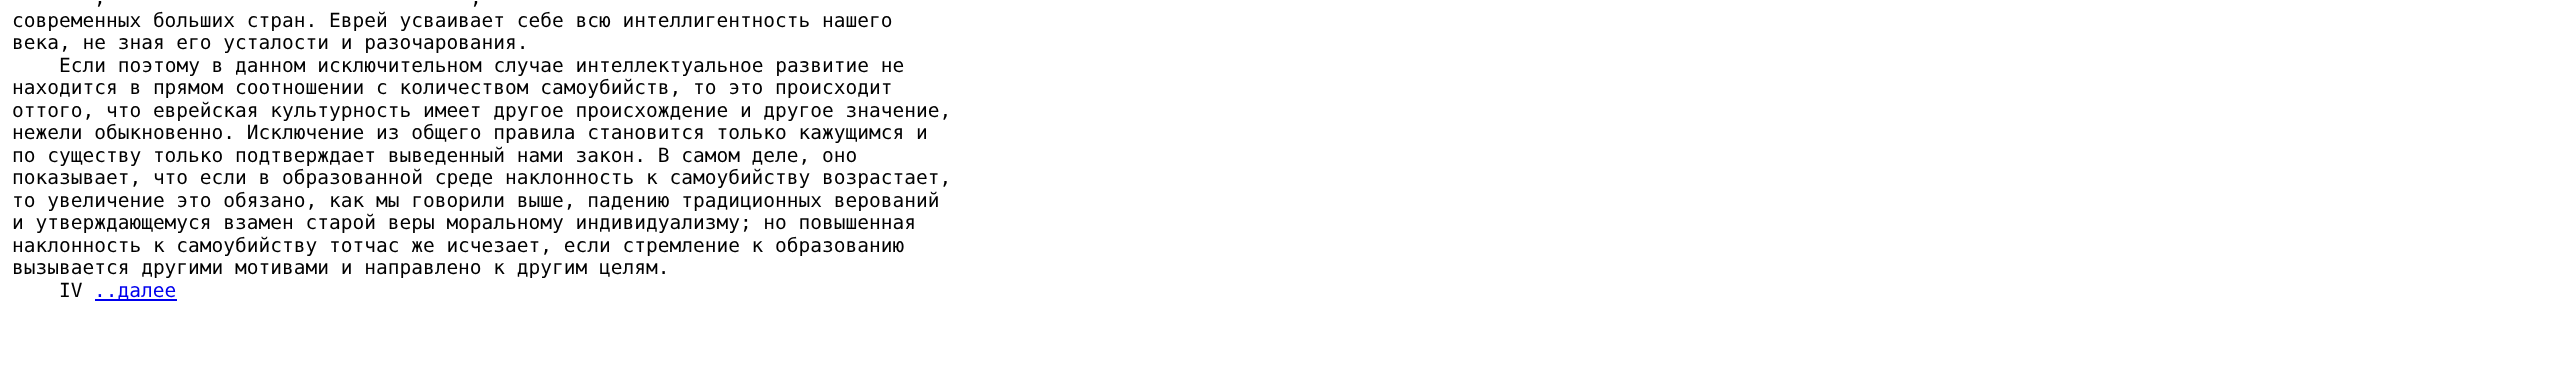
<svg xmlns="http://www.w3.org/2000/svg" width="2574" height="383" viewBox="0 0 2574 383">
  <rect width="100%" height="100%" fill="#fff"/>
  <path d="M95 299h82v2H95z" fill="#00e"/>
  <g font-family="DejaVu Sans Mono" font-size="19.5" fill="#000">
    <text x="94" y="4">,</text>
    <text x="470" y="4">,</text>
    <text x="12" y="27">современных больших стран. Еврей усваивает себе всю интеллигентность нашего</text>
    <text x="12" y="49">века, не зная его усталости и разочарования.</text>
    <text x="59" y="72">Если поэтому в данном исключительном случае интеллектуальное развитие не</text>
    <text x="12" y="94">находится в прямом соотношении с количеством самоубийств, то это происходит</text>
    <text x="12" y="117">оттого, что еврейская культурность имеет другое происхождение и другое значение,</text>
    <text x="12" y="139">нежели обыкновенно. Исключение из общего правила становится только кажущимся и</text>
    <text x="12" y="162">по существу только подтверждает выведенный нами закон. В самом деле, оно</text>
    <text x="12" y="184">показывает, что если в образованной среде наклонность к самоубийству возрастает,</text>
    <text x="12" y="207">то увеличение это обязано, как мы говорили выше, падению традиционных верований</text>
    <text x="12" y="229">и утверждающемуся взамен старой веры моральному индивидуализму; но повышенная</text>
    <text x="12" y="252">наклонность к самоубийству тотчас же исчезает, если стремление к образованию</text>
    <text x="12" y="274">вызывается другими мотивами и направлено к другим целям.</text>
    <text x="59" y="297">IV</text>
  </g>
  <text x="94" y="297" font-family="DejaVu Sans Mono" font-size="19.5" fill="#00e">..далее</text>
</svg>
